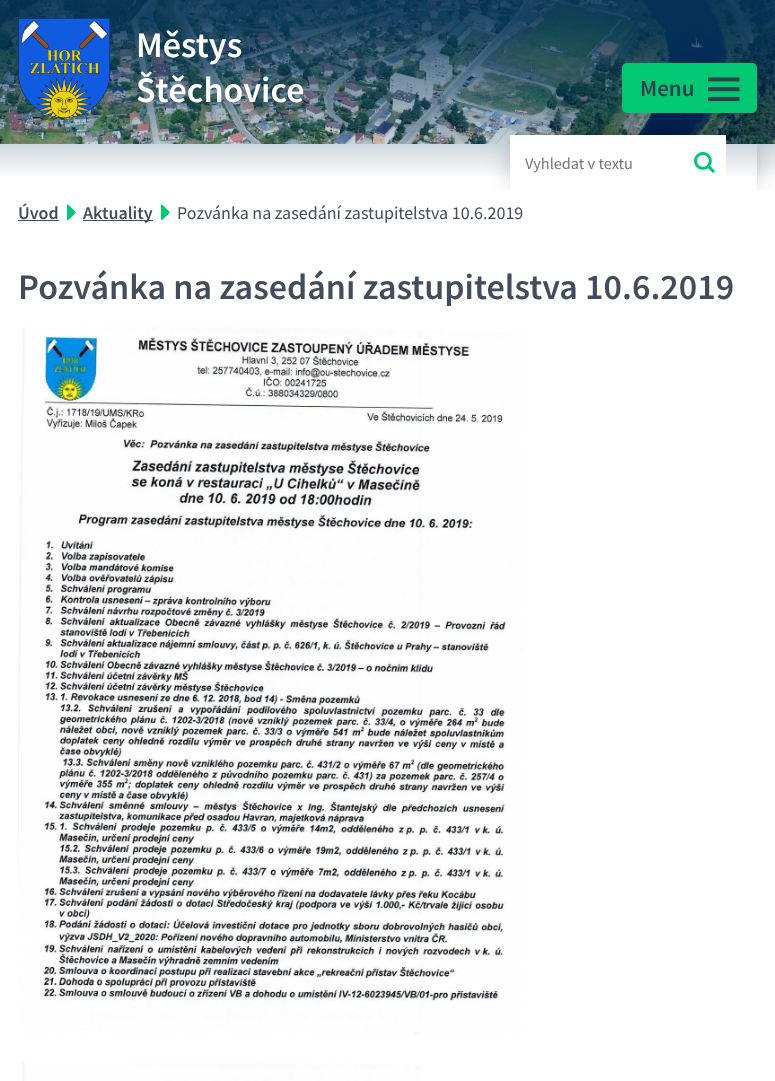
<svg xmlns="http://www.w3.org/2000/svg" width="775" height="1081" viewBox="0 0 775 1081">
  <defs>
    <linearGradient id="g1" gradientUnits="userSpaceOnUse" x1="388" y1="0" x2="388" y2="180"><stop offset="0.1" stop-color="#053356" stop-opacity="0.88"/><stop offset="1" stop-color="#053356" stop-opacity="0"/></linearGradient>
    <clipPath id="clip1"><path d="M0 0h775v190H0z"/></clipPath>
    <clipPath id="clip2"><path d="M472 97H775V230H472ZM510 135H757V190H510Z" clip-rule="evenodd"/></clipPath>
  </defs>
  <rect width="100%" height="100%" fill="#fff"/>
  <image x="0" y="0" width="775" height="144" href="img/1.png"/>
  <path d="M0 0h775v176H0z" fill="url(#g1)"/>
  <image x="18" y="18" width="92" height="100" href="img/2.png"/>
  <g clip-path="url(#clip1)">
    <g clip-path="url(#clip2)">
      <path d="M526 151h217v25H526z" fill="#000" filter="blur(17.5px)"/>
    </g>
  </g>
  <path d="M510 135h216v41H510z" fill="#fff"/>
  <image x="694" y="152" width="21" height="21" href="img/3.png"/>
  <rect x="622" y="63" width="135" height="50" rx="5" fill="#02c873"/>
  <image x="708" y="77" width="32" height="25" href="img/4.png"/>
  <path d="M18 220h41v1H18z" fill="#414d5b"/>
  <image x="67" y="204" width="9" height="16" href="img/5.png"/>
  <path d="M83 220h70v1H83z" fill="#414d5b"/>
  <image x="161" y="204" width="9" height="16" href="img/5.png"/>
  <image x="18" y="327" width="504" height="708" href="img/6.png"/>
  <image x="22" y="1063" width="398" height="18" href="img/7.png"/>
  <g font-family="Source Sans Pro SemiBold" font-size="36" font-weight="600" fill="#fff">
    <text x="136" y="57">Městys</text>
    <text x="136" y="102">Štěchovice</text>
  </g>
  <text x="525" y="169" font-family="Source Sans Pro" font-size="16.25" fill="#757575">Vyhledat v textu</text>
  <text x="640" y="96" font-family="Source Sans Pro SemiBold" font-size="23" font-weight="600" fill="#353e4b">Menu</text>
  <g font-family="Source Sans Pro SemiBold" font-size="18" font-weight="600" fill="#414d5b">
    <text x="18" y="219">Úvod</text>
    <text x="83" y="219">Aktuality</text>
  </g>
  <text x="177" y="219" font-family="Source Sans Pro" font-size="18" fill="#414d5b">Pozvánka na zasedání zastupitelstva 10.6.2019</text>
  <text x="18" y="299" font-family="Source Sans Pro SemiBold" font-size="36" font-weight="600" fill="#414d5b">Pozvánka na zasedání zastupitelstva 10.6.2019</text>
</svg>
